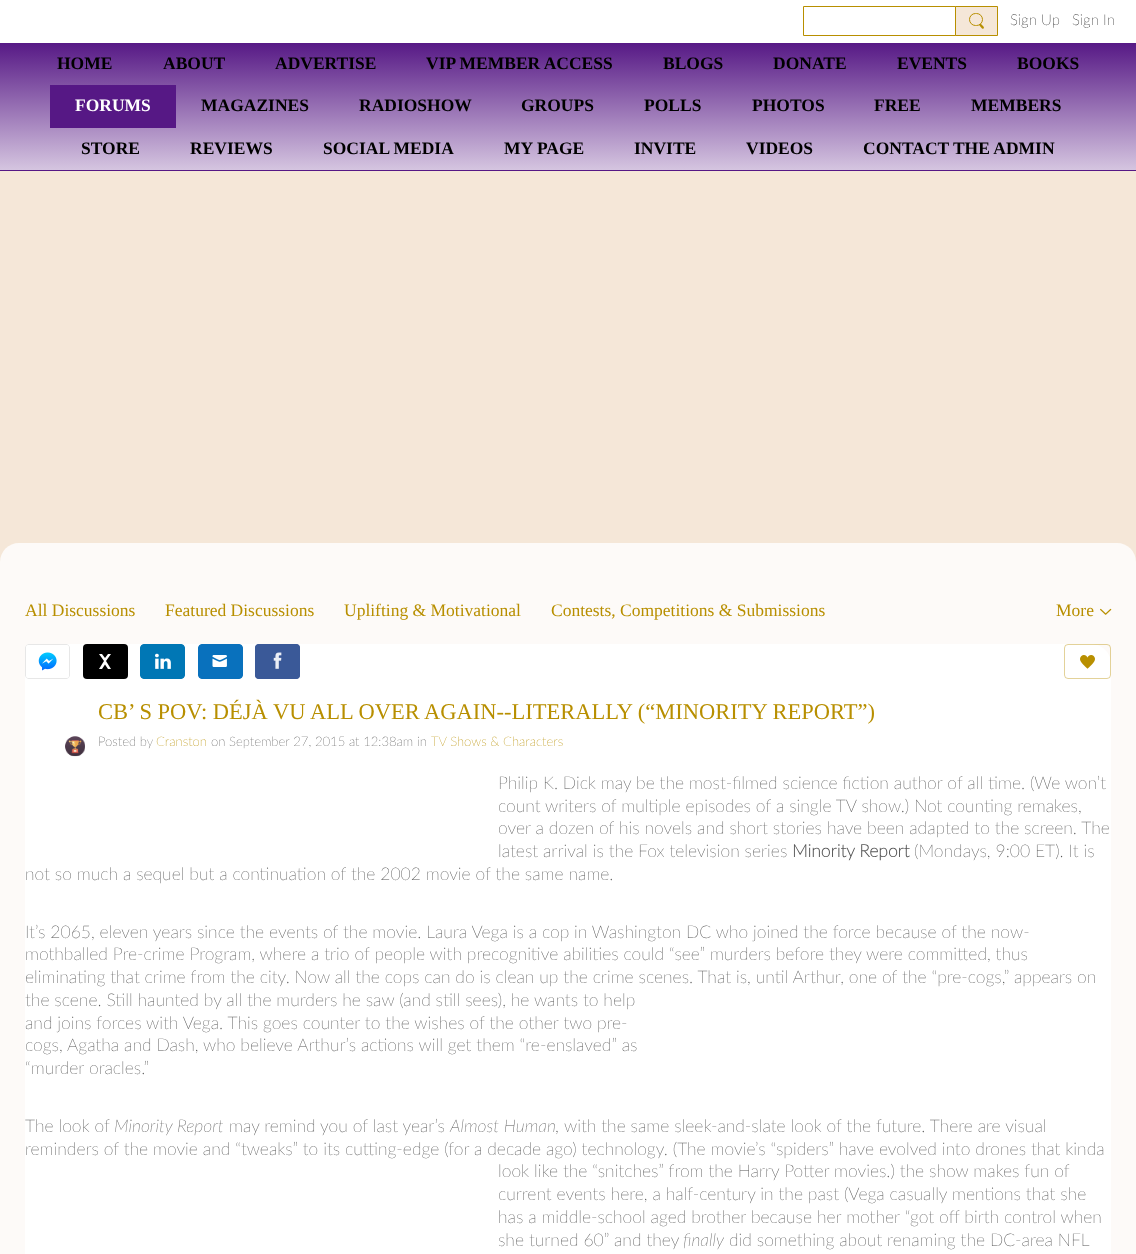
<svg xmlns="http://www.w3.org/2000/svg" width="1136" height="1254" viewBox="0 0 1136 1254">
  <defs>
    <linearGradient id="g1" gradientUnits="userSpaceOnUse" x1="568" y1="42" x2="568" y2="170"><stop offset="0" stop-color="#561885"/><stop offset="1" stop-color="#d5c5e0"/></linearGradient>
  </defs>
  <rect width="100%" height="100%" fill="#f5e7d8"/>
  <path d="M0 0h1136v43H0z" fill="#fff"/>
  <path d="M803.5 6.5h152v29H803.5z" fill="none" stroke="#b88f00"/>
  <path d="M955.5 6.5h42v29H955.5z" fill="#f5e7d8" stroke="#b88f00"/>
  <rect x="969.5" y="13.5" width="13" height="12" rx="6" fill="none" stroke="#b88f00"/>
  <path d="M981 24L983 26C985 28 983.5 29.5 982 28.5L979.5 25.5C978.5 24.5 980 23 981 24Z" fill="#b88f00"/>
  <path d="M0 43h1136v127H0z" fill="url(#g1)"/>
  <path d="M0 170h1136v1H0z" fill="#561885"/>
  <path d="M50 85h126v43H50z" fill="#561885"/>
  <rect y="543" width="1136" height="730" rx="19" fill="#fdfaf8"/>
  <image x="1100" y="608" width="12" height="7" href="img/1.png"/>
  <path d="M45 644H1091C1102 644 1111 653 1111 664V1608C1111 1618 1102 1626 1091 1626H45C34 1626 25 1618 25 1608V664C25 653 34 644 45 644Z" fill="#fff"/>
  <image x="25" y="644" width="45" height="35" href="img/2.png"/>
  <rect x="83" y="644" width="45" height="35" rx="4" fill="#000"/>
  <path d="M99 654L104 661L99 669H102L105 664.5L108 669H111L106 661L111 654H108L105 658L102 654Z" fill="#fff" fill-rule="evenodd"/>
  <image x="140" y="644" width="45" height="35" href="img/3.png"/>
  <image x="198" y="644" width="45" height="35" href="img/4.png"/>
  <rect x="255" y="644" width="45" height="35" rx="4" fill="#3b5998"/>
  <image x="255" y="644" width="45" height="35" href="img/5.png"/>
  <rect x="1064.5" y="644.5" width="46" height="34" rx="3.5" fill="none" stroke="#b88f0066"/>
  <image x="1080" y="655" width="15" height="14" href="img/6.png"/>
  <image x="65" y="736" width="20" height="21" href="img/7.png"/>
  <g font-family="Lato" font-size="15" font-weight="300" fill="#1f1f1f">
    <text x="1010" y="25">Sign Up</text>
    <text x="1072" y="25">Sign In</text>
  </g>
  <g font-family="Liberation Serif" font-size="17.5" font-weight="bold" fill="#000">
    <text x="57" y="69">HOME</text>
    <text x="163" y="69">ABOUT</text>
    <text x="275" y="69">ADVERTISE</text>
    <text x="426" y="69">VIP MEMBER ACCESS</text>
    <text x="663" y="69">BLOGS</text>
    <text x="773" y="69">DONATE</text>
    <text x="897" y="69">EVENTS</text>
    <text x="1017" y="69">BOOKS</text>
  </g>
  <text x="75" y="111" font-family="Liberation Serif" font-size="17.5" font-weight="bold" fill="#fff">FORUMS</text>
  <g font-family="Liberation Serif" font-size="17.5" font-weight="bold" fill="#000">
    <text x="201" y="111">MAGAZINES</text>
    <text x="359" y="111">RADIOSHOW</text>
    <text x="521" y="111">GROUPS</text>
    <text x="644" y="111">POLLS</text>
    <text x="752" y="111">PHOTOS</text>
    <text x="874" y="111">FREE</text>
    <text x="971" y="111">MEMBERS</text>
    <text x="81" y="154">STORE</text>
    <text x="190" y="154">REVIEWS</text>
    <text x="323" y="154">SOCIAL MEDIA</text>
    <text x="504" y="154">MY PAGE</text>
    <text x="634" y="154">INVITE</text>
    <text x="746" y="154">VIDEOS</text>
    <text x="863" y="154">CONTACT THE ADMIN</text>
  </g>
  <g font-family="Liberation Serif" font-size="17.5" fill="#b88f00">
    <text x="25" y="616">All Discussions</text>
    <text x="165" y="616">Featured Discussions</text>
    <text x="344" y="616">Uplifting &amp; Motivational</text>
    <text x="551" y="616">Contests, Competitions &amp; Submissions</text>
    <text x="1056" y="616">More</text>
  </g>
  <text x="98" y="719" font-family="Liberation Serif" font-size="22.5" fill="#b88f00">CB’ S POV: DÉJÀ VU ALL OVER AGAIN--LITERALLY (“MINORITY REPORT”)</text>
  <text x="98" y="746" font-family="Lato" font-size="13.1" font-weight="300" fill="#575757">Posted by</text>
  <text x="156" y="746" font-family="Lato" font-size="13.1" font-weight="300" fill="#b88f00">Cranston</text>
  <text x="211" y="746" font-family="Lato" font-size="13.1" font-weight="300" fill="#575757">on September 27, 2015 at 12:38am in</text>
  <text x="431" y="746" font-family="Lato" font-size="13.1" font-weight="300" fill="#b88f00">TV Shows &amp; Characters</text>
  <g font-family="Lato" font-size="17.5" font-weight="300" fill="#575757">
    <text x="498" y="789">Philip K. Dick may be the most-filmed science fiction author of all time. (We won’t</text>
    <text x="498" y="812">count writers of multiple episodes of a single TV show.) Not counting remakes,</text>
    <text x="498" y="834">over a dozen of his novels and short stories have been adapted to the screen. The</text>
    <text x="498" y="857">latest arrival is the Fox television series</text>
  </g>
  <text x="792" y="857" font-family="Lato" font-size="17.5" font-weight="bold" fill="#575757">Minority Report</text>
  <g font-family="Lato" font-size="17.5" font-weight="300" fill="#575757">
    <text x="914" y="857">(Mondays, 9:00 ET). It is</text>
    <text x="25" y="880">not so much a sequel but a continuation of the 2002 movie of the same name.</text>
    <text x="25" y="938">It’s 2065, eleven years since the events of the movie. Laura Vega is a cop in Washington DC who joined the force because of the now-</text>
    <text x="25" y="960">mothballed Pre-crime Program, where a trio of people with precognitive abilities could “see” murders before they were committed, thus</text>
    <text x="25" y="983">eliminating that crime from the city. Now all the cops can do is clean up the crime scenes. That is, until Arthur, one of the “pre-cogs,” appears on</text>
    <text x="25" y="1006">the scene. Still haunted by all the murders he saw (and still sees), he wants to help</text>
    <text x="25" y="1029">and joins forces with Vega. This goes counter to the wishes of the other two pre-</text>
    <text x="25" y="1051">cogs, Agatha and Dash, who believe Arthur’s actions will get them “re-enslaved” as</text>
    <text x="25" y="1074">“murder oracles.”</text>
    <text x="25" y="1132">The look of</text>
  </g>
  <text x="114" y="1132" font-family="Lato" font-size="17.5" font-weight="300" font-style="italic" fill="#575757">Minority Report</text>
  <text x="229" y="1132" font-family="Lato" font-size="17.5" font-weight="300" fill="#575757">may remind you of last year’s</text>
  <text x="450" y="1132" font-family="Lato" font-size="17.5" font-weight="300" font-style="italic" fill="#575757">Almost Human,</text>
  <g font-family="Lato" font-size="17.5" font-weight="300" fill="#575757">
    <text x="564" y="1132">with the same sleek-and-slate look of the future. There are visual</text>
    <text x="25" y="1155">reminders of the movie and “tweaks” to its cutting-edge (for a decade ago) technology. (The movie’s “spiders” have evolved into drones that kinda</text>
    <text x="498" y="1177">look like the “snitches” from the Harry Potter movies.) the show makes fun of</text>
    <text x="498" y="1200">current events here, a half-century in the past (Vega casually mentions that she</text>
    <text x="498" y="1223">has a middle-school aged brother because her mother “got off birth control when</text>
    <text x="498" y="1246">she turned 60” and they</text>
  </g>
  <text x="683" y="1246" font-family="Lato" font-size="17.5" font-weight="300" font-style="italic" fill="#575757">finally</text>
  <text x="729" y="1246" font-family="Lato" font-size="17.5" font-weight="300" fill="#575757">did something about renaming the DC-area NFL</text>
</svg>
